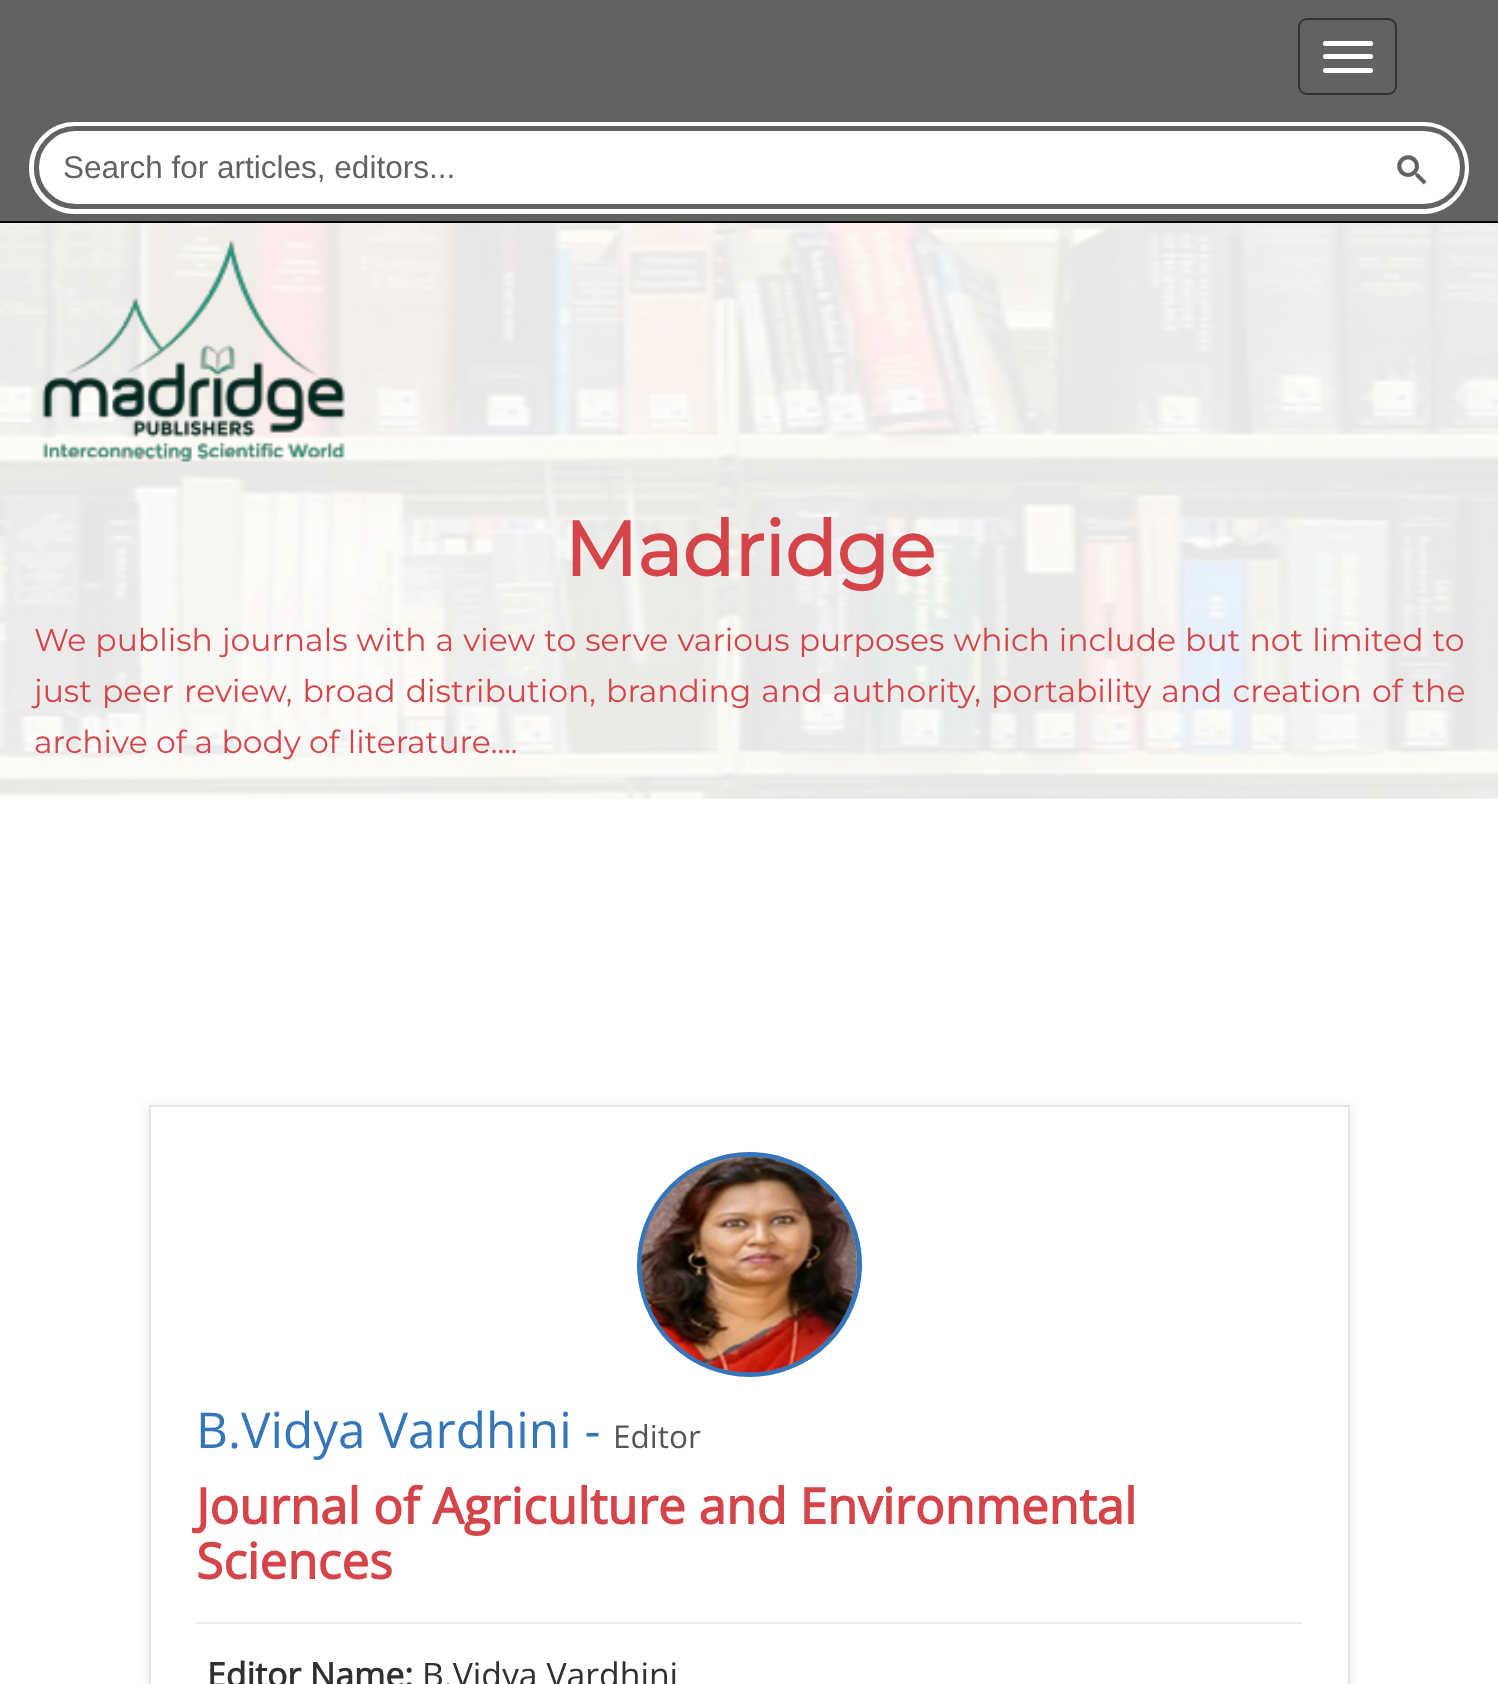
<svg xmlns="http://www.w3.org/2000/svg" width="1498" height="1684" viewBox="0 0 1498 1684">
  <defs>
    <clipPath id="clip1"><path d="M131 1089H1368V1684H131ZM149 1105H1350V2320H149Z" clip-rule="evenodd"/></clipPath>
  </defs>
  <rect width="100%" height="100%" fill="#fff"/>
  <path d="M0 0h1498v221H0z" fill="#626360"/>
  <path d="M0 221h1498v2H0z" fill="#080808"/>
  <rect x="1299" y="19" width="97" height="75" rx="8" fill="none" stroke="#333" stroke-width="2"/>
  <rect x="1323" y="41" width="50" height="5" rx="2.5" fill="#fff"/>
  <rect x="1323" y="54" width="50" height="5" rx="2.5" fill="#fff"/>
  <rect x="1323" y="68" width="50" height="5" rx="2.5" fill="#fff"/>
  <rect x="31.5" y="124.5" width="1435" height="87" rx="43.5" fill="none" stroke="#fff" stroke-width="5"/>
  <rect x="36.5" y="128.5" width="1426" height="78" rx="39" fill="#fff" stroke="#626360" stroke-width="5"/>
  <image x="1397" y="155" width="30" height="30" href="img/1.png"/>
  <image x="0" y="223" width="1498" height="576" href="img/2.png"/>
  <image x="42" y="240" width="303" height="223" href="img/3.png"/>
  <g clip-path="url(#clip1)">
    <path d="M149 1107h1201v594H149z" fill="#0000001a" filter="blur(5.5px)"/>
  </g>
  <path d="M150 1106h1199v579H150z" fill="none" stroke="#e6e6e6" stroke-width="2"/>
  <circle cx="749.5" cy="1264.5" r="110" fill="none" stroke="#3575b9" stroke-width="5"/>
  <image x="641" y="1156" width="217" height="217" href="img/4.png"/>
  <path d="M196 1622h1107v2H196z" fill="#eee"/>
  <text x="63" y="178" font-family="Liberation Sans" font-size="31.5" fill="#626360">Search for articles, editors...</text>
  <text x="564" y="576" font-family="Montserrat" font-size="76.5" font-weight="bold" fill="#d54449">Madridge</text>
  <g font-family="Montserrat" font-size="31.5" font-weight="100" fill="#d54449">
    <text x="34" y="651" word-spacing="0.8">We publish journals with a view to serve various purposes which include but not limited to</text>
    <text x="34" y="702" word-spacing="1.75">just peer review, broad distribution, branding and authority, portability and creation of the</text>
    <text x="34" y="753">archive of a body of literature....</text>
  </g>
  <text x="196" y="1448" font-family="Open Sans" font-size="49.5" fill="#3575b9">B.Vidya Vardhini -</text>
  <text x="613" y="1448" font-family="Open Sans" font-size="31.5" fill="#555">Editor</text>
  <g font-family="Open Sans" font-size="49.5" font-weight="bold" fill="#d54449">
    <text x="196" y="1524">Journal of Agriculture and Environmental</text>
    <text x="196" y="1579">Sciences</text>
  </g>
  <text x="207" y="1687" font-family="Open Sans" font-size="33.75" font-weight="bold" fill="#303030">Editor Name:</text>
  <text x="422" y="1687" font-family="Open Sans" font-size="33.75" fill="#303030">B.Vidya Vardhini</text>
</svg>
